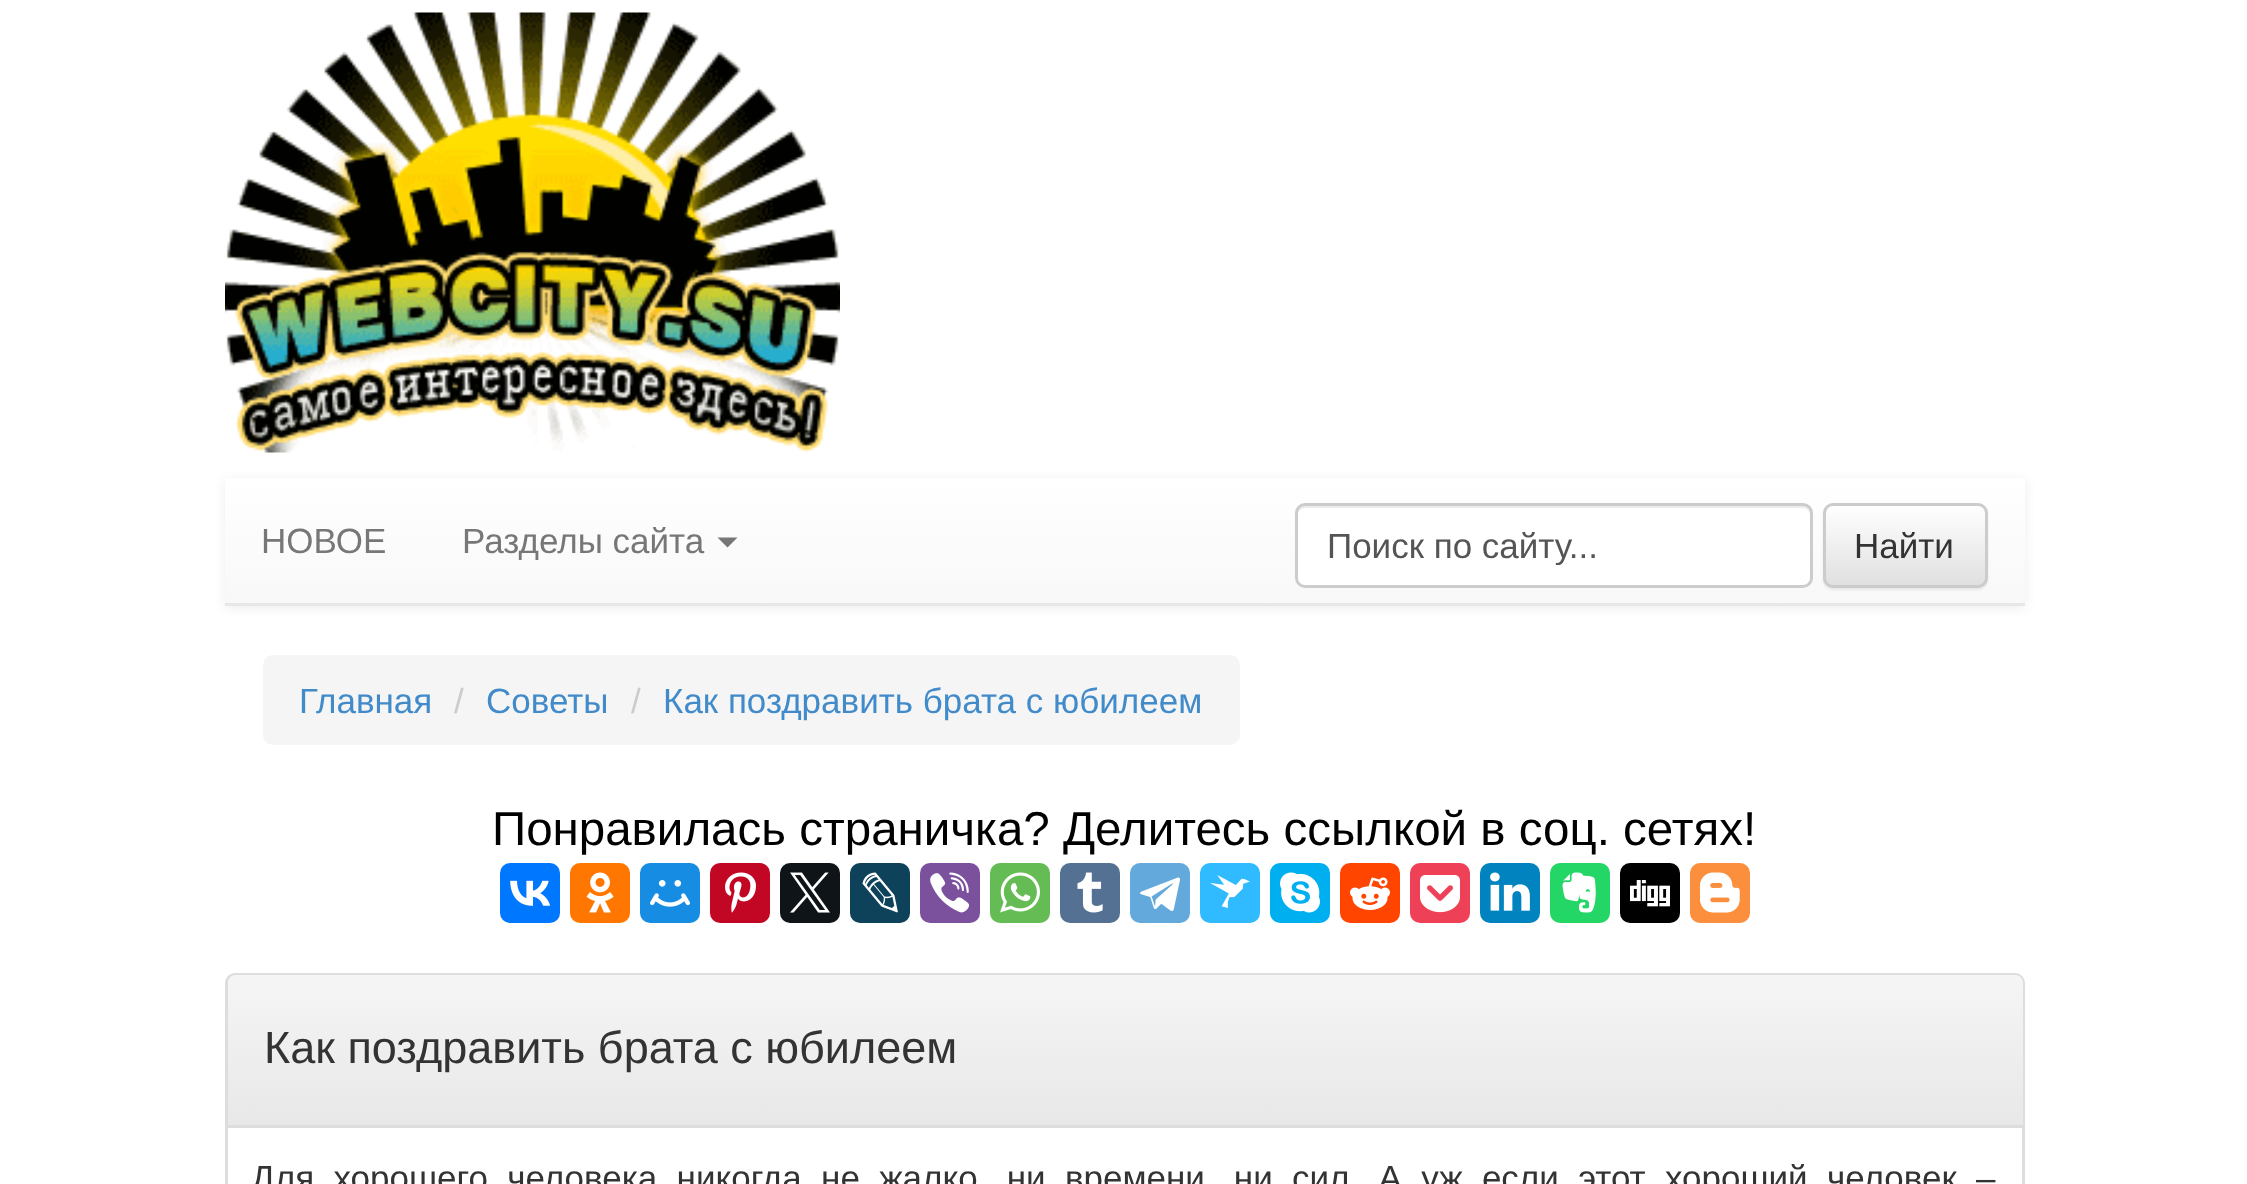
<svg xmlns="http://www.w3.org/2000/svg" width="2247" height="1184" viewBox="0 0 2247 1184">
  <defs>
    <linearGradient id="g1" gradientUnits="userSpaceOnUse" x1="1125" y1="477" x2="1125" y2="603"><stop offset="0" stop-color="#fff"/><stop offset="1" stop-color="#f8f8f8"/></linearGradient>
    <clipPath id="clip1"><rect x="1823" y="503" width="165" height="85" rx="10"/></clipPath>
    <linearGradient id="g2" gradientUnits="userSpaceOnUse" x1="1905" y1="505" x2="1905" y2="585"><stop offset="0" stop-color="#fff"/><stop offset="1" stop-color="#e0e0e0"/></linearGradient>
    <linearGradient id="g3" gradientUnits="userSpaceOnUse" x1="1125" y1="975" x2="1125" y2="1125"><stop offset="0" stop-color="#f5f5f5"/><stop offset="1" stop-color="#e8e8e8"/></linearGradient>
    <clipPath id="clip2"><path d="M1328 525h452v40H1328z"/></clipPath>
  </defs>
  <rect width="100%" height="100%" fill="#fff"/>
  <image x="225" y="12" width="615" height="441" href="img/1.png"/>
  <path d="M225 480h1800v128H225z" fill="#00000012" filter="blur(6px)"/>
  <path d="M225 478h1800v125H225z" fill="url(#g1)"/>
  <path d="M225 603h1800v3H225z" fill="#e7e7e7"/>
  <path d="M717.5 537.5H737.5L727.5 547.5Z" fill="#777"/>
  <rect x="1295" y="503" width="518" height="85" rx="10" fill="#fff"/>
  <path d="M1305 508H1802C1807 508 1810 511 1810 515V513C1810 509 1806 505 1802 505H1306C1302 505 1298 509 1298 513V515C1298 511 1301 508 1305 508Z" fill="#ececec"/>
  <rect x="1296.5" y="504.5" width="515" height="82" rx="8.5" fill="none" stroke="#ccc" stroke-width="3"/>
  <rect x="1823" y="505" width="165" height="85" rx="10" fill="#00000012" filter="blur(1px)"/>
  <g clip-path="url(#clip1)">
    <path d="M1823 505h165v80H1823z" fill="url(#g2)"/>
  </g>
  <rect x="1824.5" y="504.5" width="162" height="82" rx="8.5" fill="none" stroke="#ccc" stroke-width="3"/>
  <rect x="263" y="655" width="977" height="90" rx="10" fill="#f5f5f5"/>
  <rect x="500" y="863" width="60" height="60" rx="10" fill="#07f"/>
  <image x="510" y="880" width="41" height="26" href="img/2.png"/>
  <rect x="570" y="863" width="60" height="60" rx="10" fill="#f70"/>
  <image x="586" y="872" width="28" height="41" href="img/3.png"/>
  <rect x="640" y="863" width="60" height="60" rx="10" fill="#168de2"/>
  <image x="650" y="880" width="40" height="27" href="img/4.png"/>
  <rect x="710" y="863" width="60" height="60" rx="10" fill="#c20724"/>
  <image x="725" y="872" width="31" height="41" href="img/5.png"/>
  <rect x="780" y="863" width="60" height="60" rx="10" fill="#0f1419"/>
  <image x="790" y="872" width="40" height="41" href="img/6.png"/>
  <rect x="850" y="863" width="60" height="60" rx="10" fill="#0d425a"/>
  <image x="862" y="872" width="36" height="41" href="img/7.png"/>
  <rect x="920" y="863" width="60" height="60" rx="10" fill="#7b519d"/>
  <image x="930" y="872" width="40" height="41" href="img/8.png"/>
  <rect x="990" y="863" width="60" height="60" rx="10" fill="#65bc54"/>
  <image x="1000" y="872" width="40" height="41" href="img/9.png"/>
  <rect x="1060" y="863" width="60" height="60" rx="10" fill="#547093"/>
  <image x="1077" y="872" width="26" height="41" href="img/10.png"/>
  <rect x="1130" y="863" width="60" height="60" rx="10" fill="#64a9dc"/>
  <image x="1140" y="877" width="40" height="34" href="img/11.png"/>
  <rect x="1200" y="863" width="60" height="60" rx="10" fill="#30baff"/>
  <image x="1210" y="875" width="40" height="33" href="img/12.png"/>
  <rect x="1270" y="863" width="60" height="60" rx="10" fill="#00aff0"/>
  <image x="1280" y="872" width="40" height="41" href="img/13.png"/>
  <rect x="1340" y="863" width="60" height="60" rx="10" fill="#ff4500"/>
  <image x="1350" y="877" width="40" height="33" href="img/14.png"/>
  <rect x="1410" y="863" width="60" height="60" rx="10" fill="#ee4056"/>
  <image x="1420" y="875" width="40" height="38" href="img/15.png"/>
  <rect x="1480" y="863" width="60" height="60" rx="10" fill="#0083be"/>
  <image x="1490" y="872" width="40" height="39" href="img/16.png"/>
  <rect x="1550" y="863" width="60" height="60" rx="10" fill="#24d666"/>
  <image x="1562" y="872" width="34" height="41" href="img/17.png"/>
  <rect x="1620" y="863" width="60" height="60" rx="10" fill="#000"/>
  <image x="1630" y="880" width="40" height="27" href="img/18.png"/>
  <rect x="1690" y="863" width="60" height="60" rx="10" fill="#fb8f3d"/>
  <image x="1700" y="872" width="40" height="41" href="img/19.png"/>
  <rect x="226.5" y="974.5" width="1797" height="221" rx="8.5" fill="none" stroke="#ddd" stroke-width="3"/>
  <path d="M236 975H2015C2019.5 975 2023 978.5 2023 983V1125H228V983C228 978.5 231.5 975 236 975Z" fill="url(#g3)"/>
  <path d="M228 1125h1795v3H228z" fill="#ddd"/>
  <g font-family="Liberation Sans" font-size="35" fill="#777">
    <text x="261" y="553">НОВОЕ</text>
    <text x="462" y="553">Разделы сайта</text>
  </g>
  <g clip-path="url(#clip2)">
    <text x="1327" y="558" font-family="Liberation Sans" font-size="35" fill="#555">Поиск по сайту...</text>
  </g>
  <text x="1854" y="558" font-family="Liberation Sans" font-size="35" fill="#333">Найти</text>
  <text x="299" y="713" font-family="Liberation Sans" font-size="35" fill="#428bca">Главная</text>
  <text x="454" y="713" font-family="Liberation Sans" font-size="35" fill="#ccc">/</text>
  <text x="486" y="713" font-family="Liberation Sans" font-size="35" fill="#428bca">Cоветы</text>
  <text x="631" y="713" font-family="Liberation Sans" font-size="35" fill="#ccc">/</text>
  <text x="663" y="713" font-family="Liberation Sans" font-size="35" fill="#428bca">Как поздравить брата с юбилеем</text>
  <text x="492" y="845" font-family="Liberation Sans" font-size="47.5" fill="#000">Понравилась страничка? Делитеcь ссылкой в соц. сетях!</text>
  <text x="264" y="1063" font-family="Liberation Sans" font-size="45" fill="#333">Как поздравить брата с юбилеем</text>
  <text x="251" y="1190" word-spacing="9.6" font-family="Liberation Sans" font-size="35" fill="#333">Для хорошего человека никогда не жалко, ни времени, ни сил. А уж если этот хороший человек –</text>
</svg>
